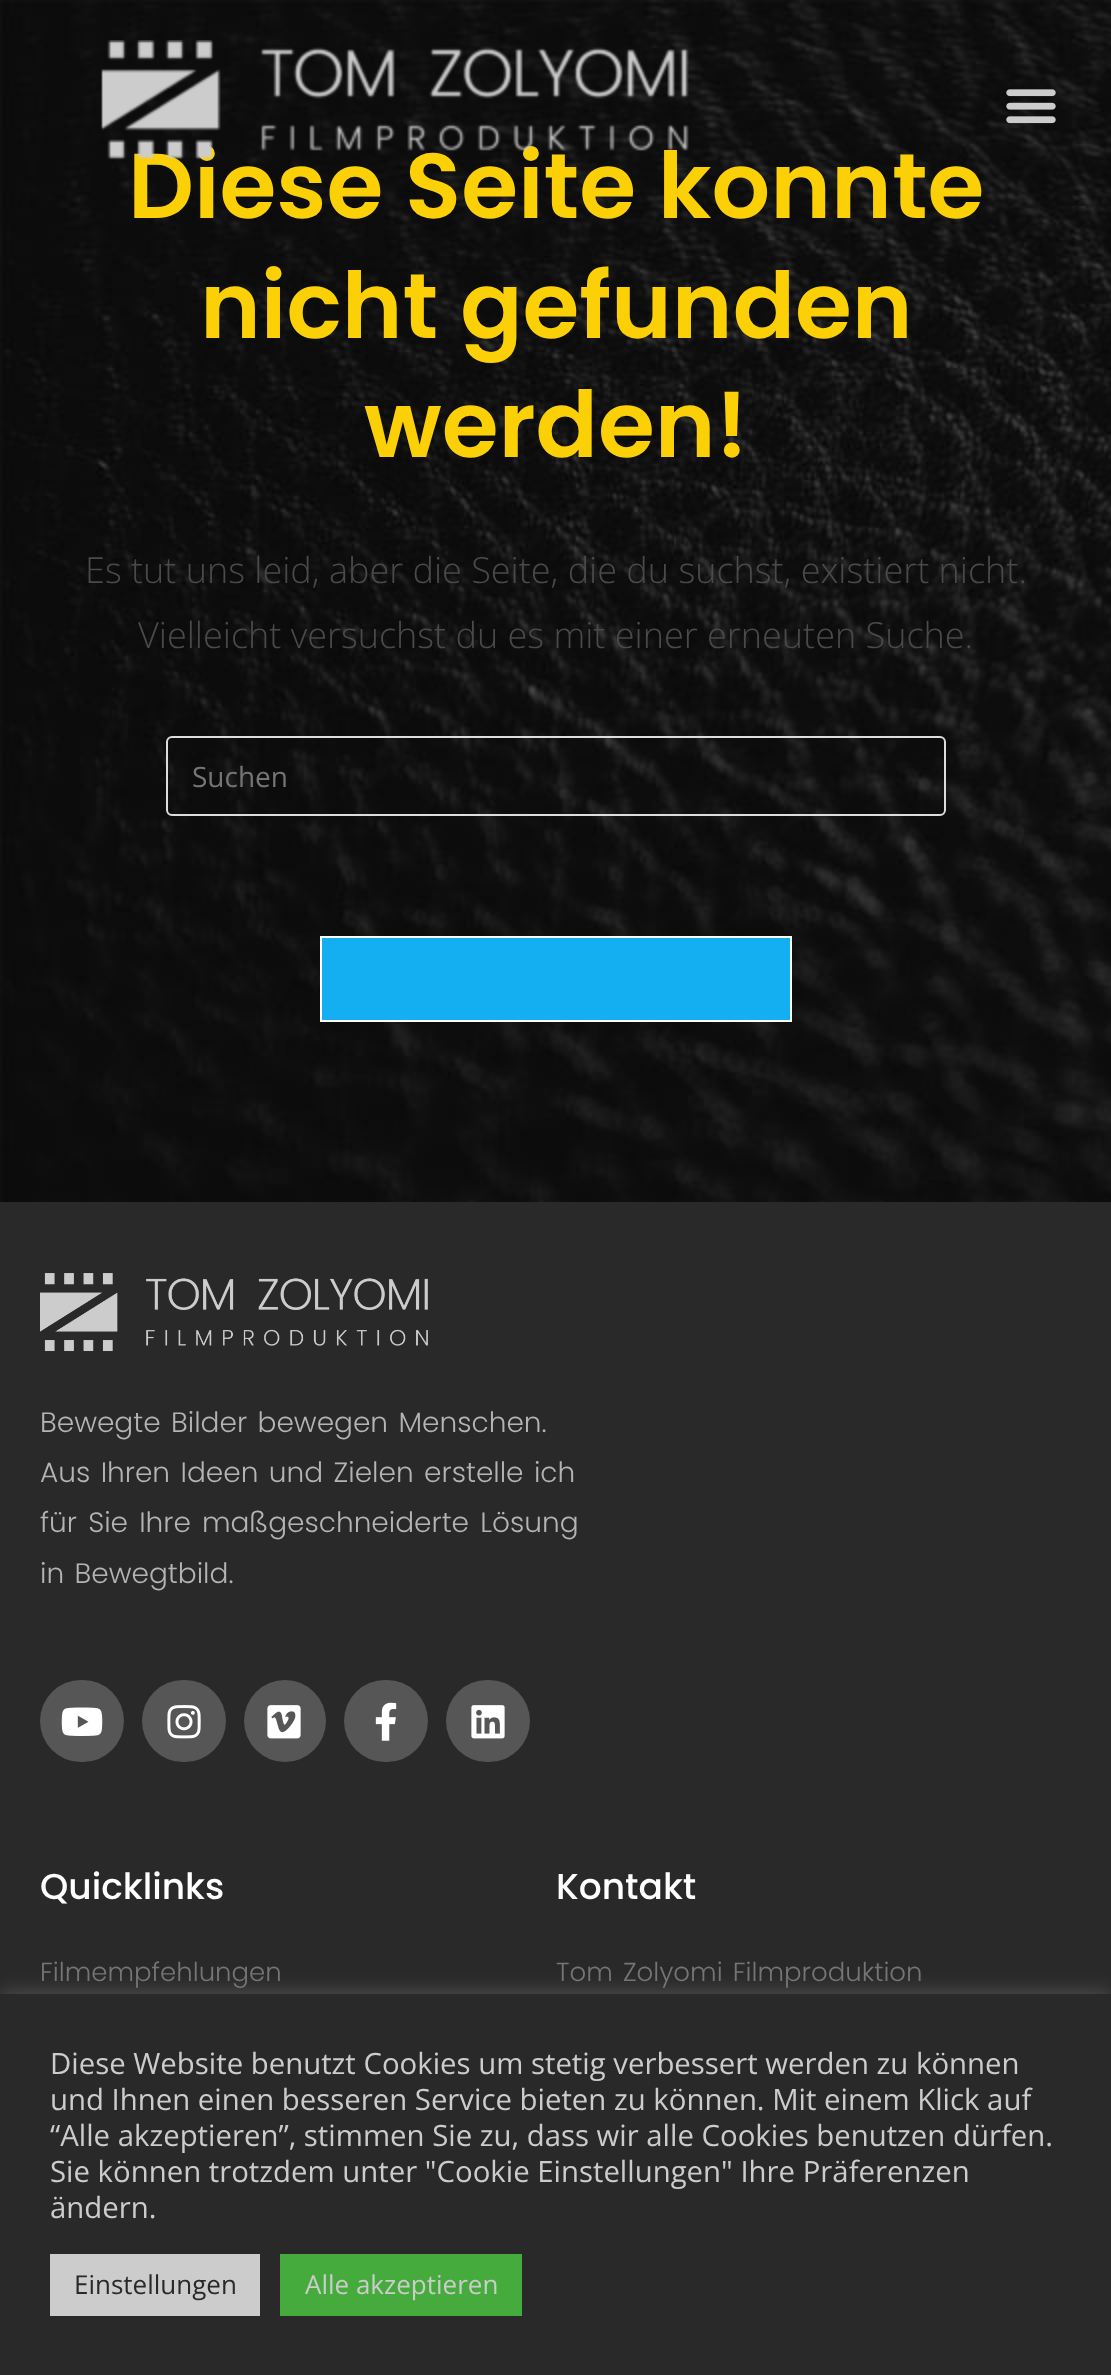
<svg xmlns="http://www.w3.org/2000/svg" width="1111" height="2375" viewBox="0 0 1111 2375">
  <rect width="100%" height="100%" fill="#fff"/>
  <image x="0" y="0" width="1111" height="1202" href="img/1.png"/>
  <image x="1006" y="89" width="50" height="35" href="img/3.png"/>
  <rect x="167" y="737" width="778" height="78" rx="5" fill="none" stroke="#ddd" stroke-width="2"/>
  <path d="M321 937h470v84H321z" fill="#13aff0" stroke="#fff" stroke-width="2"/>
  <path d="M0 1202h1111v792H0z" fill="#292929"/>
  <image x="40" y="1273" width="388" height="79" href="img/4.png"/>
  <rect x="40" y="1680" width="84" height="82" rx="41" fill="#565656"/>
  <image x="61" y="1707" width="42" height="29" href="img/5.png"/>
  <rect x="142" y="1680" width="84" height="82" rx="41" fill="#565656"/>
  <image x="167" y="1705" width="34" height="34" href="img/6.png"/>
  <circle cx="285" cy="1721" r="41" fill="#565656"/>
  <image x="267" y="1705" width="34" height="34" href="img/7.png"/>
  <rect x="344" y="1680" width="84" height="82" rx="41" fill="#565656"/>
  <image x="375" y="1702" width="22" height="39" href="img/8.png"/>
  <rect x="446" y="1680" width="84" height="82" rx="41" fill="#565656"/>
  <image x="471" y="1705" width="34" height="34" href="img/9.png"/>
  <path d="M0 1992h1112v382H0z" fill="#acabab4d" filter="blur(10px)"/>
  <path d="M0 1994h1111v381H0z" fill="#292929"/>
  <path d="M50 2254h210v62H50z" fill="#ccc"/>
  <path d="M280 2254h242v62H280z" fill="#45ab3c"/>
  <text x="128" y="218" font-family="Poppins" font-size="92" font-weight="600" fill="#fbd006">Diese Seite konnte</text>
  <image x="101" y="40" width="588" height="120" href="img/2.png"/>
  <g font-family="Poppins" font-size="92" font-weight="600" fill="#fbd006">
    <text x="200" y="338">nicht gefunden</text>
    <text x="364" y="457">werden!</text>
  </g>
  <g font-family="Open Sans" font-size="36" font-weight="300" fill="#4a4a4a">
    <text x="85" y="583">Es tut uns leid, aber die Seite, die du suchst, existiert nicht.</text>
    <text x="138" y="648">Vielleicht versuchst du es mit einer erneuten Suche.</text>
  </g>
  <text x="192" y="787" font-family="Open Sans" font-size="28" fill="#757575">Suchen</text>
  <g font-family="Poppins" font-size="28" font-weight="300" fill="#b4b4b4">
    <text x="40" y="1432" word-spacing="2.75">Bewegte Bilder bewegen Menschen.</text>
    <text x="40" y="1482" word-spacing="2.75">Aus Ihren Ideen und Zielen erstelle ich</text>
    <text x="40" y="1532" word-spacing="3.5">für Sie Ihre maßgeschneiderte Lösung</text>
    <text x="40" y="1583" word-spacing="2.75">in Bewegtbild.</text>
  </g>
  <text x="40" y="1899" font-family="Poppins" font-size="36" font-weight="500" fill="#fff">Quicklinks</text>
  <text x="40" y="1981" font-family="Poppins" font-size="26" font-weight="300" fill="#757575">Filmempfehlungen</text>
  <text x="556" y="1899" font-family="Poppins" font-size="36" font-weight="500" fill="#fff">Kontakt</text>
  <text x="556" y="1981" word-spacing="3" font-family="Poppins" font-size="26" font-weight="300" fill="#757575">Tom Zolyomi Filmproduktion</text>
  <g font-family="Open Sans" font-size="29.35" fill="#ccc">
    <text x="50" y="2074">Diese Website benutzt Cookies um stetig verbessert werden zu können</text>
    <text x="50" y="2110">und Ihnen einen besseren Service bieten zu können. Mit einem Klick auf</text>
    <text x="50" y="2146">“Alle akzeptieren”, stimmen Sie zu, dass wir alle Cookies benutzen dürfen.</text>
    <text x="50" y="2182">Sie können trotzdem unter "Cookie Einstellungen" Ihre Präferenzen</text>
    <text x="50" y="2218">ändern.</text>
  </g>
  <text x="74" y="2294" font-family="Open Sans" font-size="26" fill="#292929">Einstellungen</text>
  <text x="305" y="2294" font-family="Open Sans" font-size="26" fill="#ccc">Alle akzeptieren</text>
</svg>
